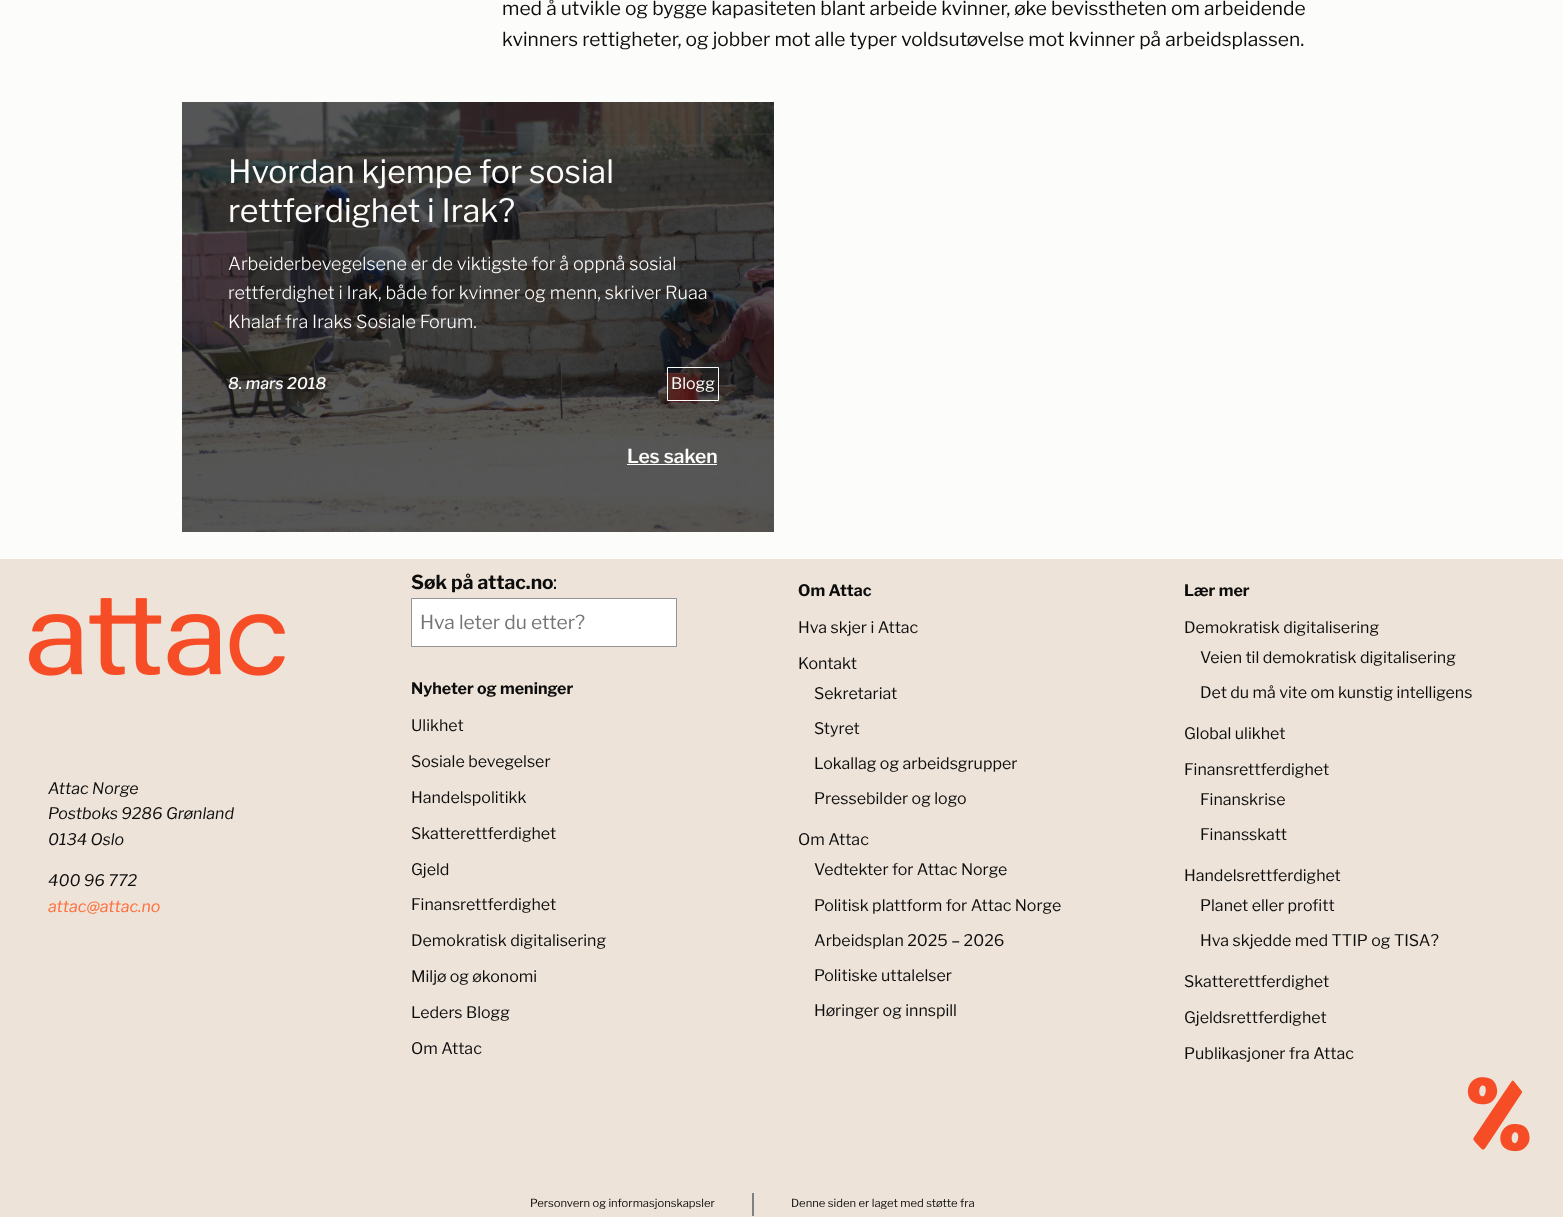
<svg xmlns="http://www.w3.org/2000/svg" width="1563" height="1217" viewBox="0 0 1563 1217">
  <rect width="100%" height="100%" fill="#fcfcfb"/>
  <image x="182" y="102" width="592" height="430" href="img/1.png"/>
  <path d="M667.5 367.5h51v33H667.5z" fill="none" stroke="#fcfcfb"/>
  <path d="M627 464h90v1H627z" fill="#fcfcfb"/>
  <path d="M0 559h1563v658H0z" fill="#ede3d9"/>
  <image x="28" y="598" width="257" height="78" href="img/2.png"/>
  <path d="M411.5 598.5h265v48H411.5z" fill="#fff" stroke="#949494"/>
  <image x="1467" y="1077" width="63" height="75" href="img/3.png"/>
  <path d="M752 1193h2v23H752z" fill="#808080"/>
  <g font-family="Libre Franklin" font-size="19.2" fill="#0d0d0d">
    <text x="502" y="15">med å utvikle og bygge kapasiteten blant arbeide kvinner, øke bevisstheten om arbeidende</text>
    <text x="502" y="46">kvinners rettigheter, og jobber mot alle typer voldsutøvelse mot kvinner på arbeidsplassen.</text>
  </g>
  <g font-family="Libre Franklin" font-size="32" fill="#fcfcfb">
    <text x="228" y="183">Hvordan kjempe for sosial</text>
    <text x="228" y="222">rettferdighet i Irak?</text>
  </g>
  <g font-family="Libre Franklin" font-size="18" font-weight="300" fill="#fcfcfb">
    <text x="228" y="270">Arbeiderbevegelsene er de viktigste for å oppnå sosial</text>
    <text x="228" y="299">rettferdighet i Irak, både for kvinner og menn, skriver Ruaa</text>
    <text x="228" y="328">Khalaf fra Iraks Sosiale Forum.</text>
  </g>
  <text x="228" y="389" font-family="Libre Franklin" font-size="16" font-weight="500" font-style="italic" fill="#fcfcfb">8. mars 2018</text>
  <text x="671" y="389" font-family="Libre Franklin" font-size="16" fill="#fcfcfb">Blogg</text>
  <text x="627" y="463" font-family="Libre Franklin" font-size="19.2" font-weight="600" fill="#fcfcfb">Les saken</text>
  <g font-family="Libre Franklin" font-size="16" font-style="italic" fill="#0d0d0d">
    <text x="48" y="794">Attac Norge</text>
    <text x="48" y="819">Postboks 9286 Grønland</text>
    <text x="48" y="845">0134 Oslo</text>
    <text x="48" y="886">400 96 772</text>
  </g>
  <text x="48" y="912" font-family="Libre Franklin" font-size="16" font-style="italic" fill="#ff6e3b">attac@attac.no</text>
  <text x="411" y="589" font-family="Libre Franklin" font-size="19.2" font-weight="bold" fill="#0d0d0d">Søk på attac.no</text>
  <text x="553" y="589" font-family="Libre Franklin" font-size="19.2" fill="#0d0d0d">:</text>
  <text x="420" y="629" font-family="Libre Franklin" font-size="19.2" fill="#757575">Hva leter du etter?</text>
  <text x="411" y="694" font-family="Libre Franklin" font-size="16" font-weight="bold" fill="#0d0d0d">Nyheter og meninger</text>
  <g font-family="Libre Franklin" font-size="16" fill="#0d0d0d">
    <text x="411" y="731">Ulikhet</text>
    <text x="411" y="767">Sosiale bevegelser</text>
    <text x="411" y="803">Handelspolitikk</text>
    <text x="411" y="839">Skatterettferdighet</text>
    <text x="411" y="875">Gjeld</text>
    <text x="411" y="910">Finansrettferdighet</text>
    <text x="411" y="946">Demokratisk digitalisering</text>
    <text x="411" y="982">Miljø og økonomi</text>
    <text x="411" y="1018">Leders Blogg</text>
    <text x="411" y="1054">Om Attac</text>
  </g>
  <text x="798" y="596" font-family="Libre Franklin" font-size="16" font-weight="bold" fill="#0d0d0d">Om Attac</text>
  <g font-family="Libre Franklin" font-size="16" fill="#0d0d0d">
    <text x="798" y="633">Hva skjer i Attac</text>
    <text x="798" y="669">Kontakt</text>
    <text x="814" y="699">Sekretariat</text>
    <text x="814" y="734">Styret</text>
    <text x="814" y="769">Lokallag og arbeidsgrupper</text>
    <text x="814" y="804">Pressebilder og logo</text>
    <text x="798" y="845">Om Attac</text>
    <text x="814" y="875">Vedtekter for Attac Norge</text>
    <text x="814" y="911">Politisk plattform for Attac Norge</text>
    <text x="814" y="946">Arbeidsplan 2025 – 2026</text>
    <text x="814" y="981">Politiske uttalelser</text>
    <text x="814" y="1016">Høringer og innspill</text>
  </g>
  <text x="1184" y="596" font-family="Libre Franklin" font-size="16" font-weight="bold" fill="#0d0d0d">Lær mer</text>
  <g font-family="Libre Franklin" font-size="16" fill="#0d0d0d">
    <text x="1184" y="633">Demokratisk digitalisering</text>
    <text x="1200" y="663">Veien til demokratisk digitalisering</text>
    <text x="1200" y="698">Det du må vite om kunstig intelligens</text>
    <text x="1184" y="739">Global ulikhet</text>
    <text x="1184" y="775">Finansrettferdighet</text>
    <text x="1200" y="805">Finanskrise</text>
    <text x="1200" y="840">Finansskatt</text>
    <text x="1184" y="881">Handelsrettferdighet</text>
    <text x="1200" y="911">Planet eller profitt</text>
    <text x="1200" y="946">Hva skjedde med TTIP og TISA?</text>
    <text x="1184" y="987">Skatterettferdighet</text>
    <text x="1184" y="1023">Gjeldsrettferdighet</text>
    <text x="1184" y="1059">Publikasjoner fra Attac</text>
  </g>
  <g font-family="Libre Franklin" font-size="11.25" fill="#0d0d0d">
    <text x="530" y="1207">Personvern og informasjonskapsler</text>
    <text x="791" y="1207">Denne siden er laget med støtte fra</text>
  </g>
</svg>
